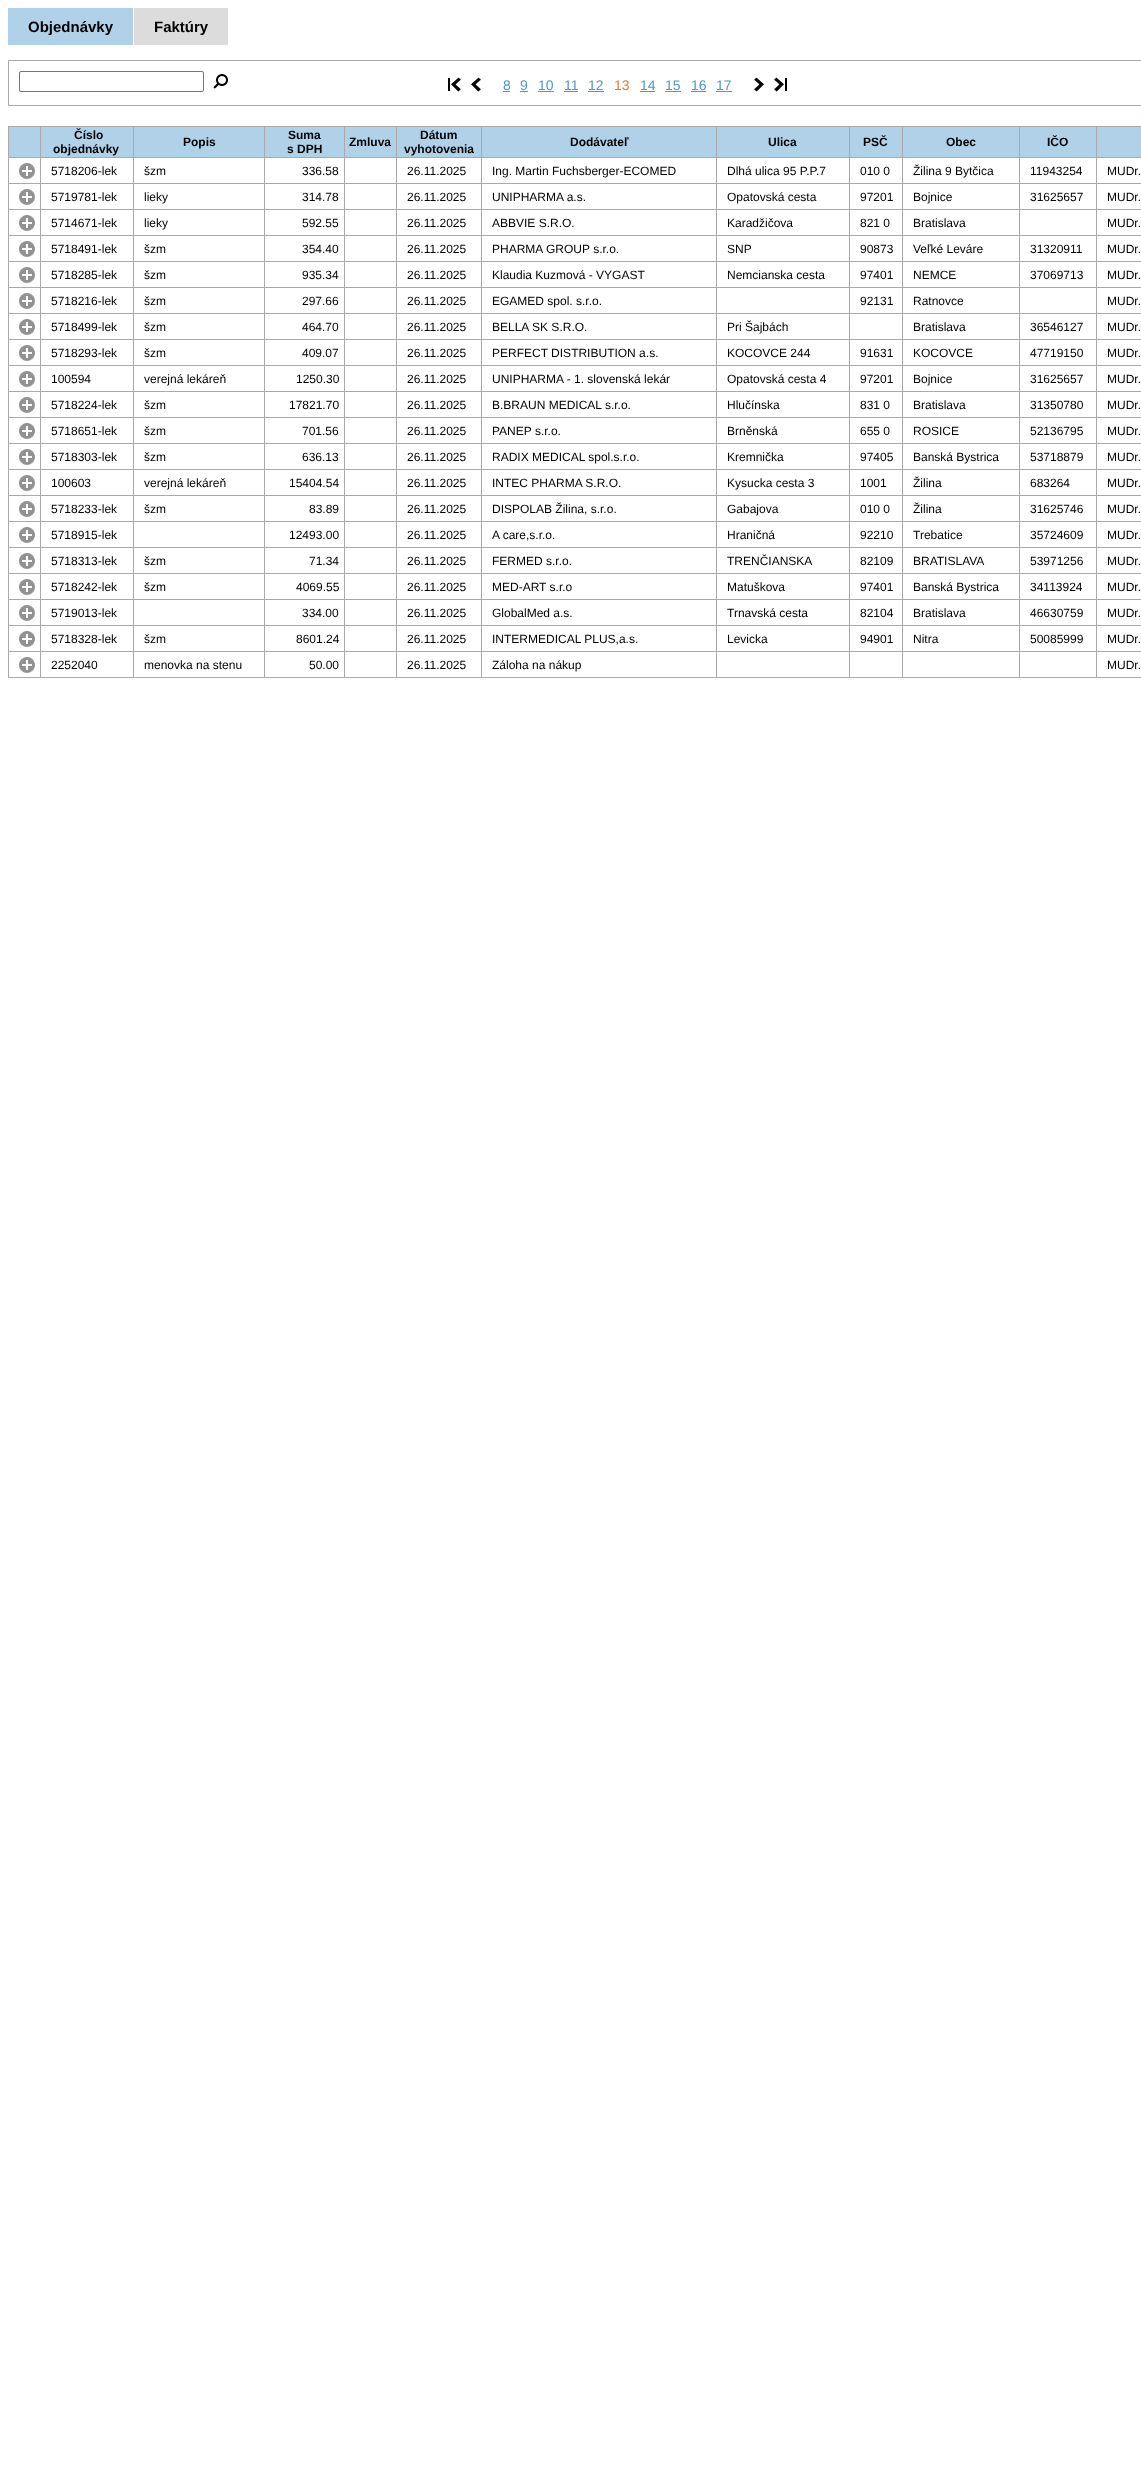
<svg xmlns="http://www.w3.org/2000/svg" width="1141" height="2471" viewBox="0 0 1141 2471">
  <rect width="100%" height="100%" fill="#fff"/>
  <path d="M8 8h125v37H8z" fill="#b0d2e9"/>
  <path d="M134 8h94v37H134z" fill="#dcdcdc"/>
  <path d="M8.5 60.5h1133v45H8.5z" fill="none" stroke="#aaa"/>
  <rect x="19.5" y="71.5" width="184" height="20" rx="1.5" fill="none" stroke="#767676"/>
  <image x="213" y="74" width="15" height="15" href="img/1.png"/>
  <image x="448" y="77" width="13" height="15" href="img/2.png"/>
  <image x="471" y="77" width="10" height="15" href="img/3.png"/>
  <path d="M503 91h7v1H503z" fill="#4c99c7"/>
  <path d="M520 91h8v1H520z" fill="#4c99c7"/>
  <path d="M538 91h16v1H538z" fill="#4c99c7"/>
  <path d="M564 91h14v1H564z" fill="#4c99c7"/>
  <path d="M588 91h16v1H588z" fill="#4c99c7"/>
  <path d="M640 91h15v1H640z" fill="#4c99c7"/>
  <path d="M665 91h16v1H665z" fill="#4c99c7"/>
  <path d="M691 91h15v1H691z" fill="#4c99c7"/>
  <path d="M716 91h16v1H716z" fill="#4c99c7"/>
  <image x="754" y="77" width="10" height="15" href="img/4.png"/>
  <image x="774" y="77" width="13" height="15" href="img/5.png"/>
  <path d="M8 126h1133v1H8z" fill="#aaa"/>
  <path d="M9 127h31v30H9z" fill="#b0d2e9"/>
  <path d="M8 157h1133v1H8z" fill="#aaa"/>
  <path d="M8 127h1v31H8z" fill="#aaa"/>
  <path d="M41 127h92v30H41z" fill="#b0d2e9"/>
  <path d="M40 127h1v31H40z" fill="#aaa"/>
  <path d="M134 127h130v30H134z" fill="#b0d2e9"/>
  <path d="M133 127h1v31H133z" fill="#aaa"/>
  <path d="M265 127h79v30H265z" fill="#b0d2e9"/>
  <path d="M264 127h1v31H264z" fill="#aaa"/>
  <path d="M345 127h51v30H345z" fill="#b0d2e9"/>
  <path d="M344 127h1v31H344z" fill="#aaa"/>
  <path d="M397 127h84v30H397z" fill="#b0d2e9"/>
  <path d="M396 127h1v31H396z" fill="#aaa"/>
  <path d="M482 127h234v30H482z" fill="#b0d2e9"/>
  <path d="M481 127h1v31H481z" fill="#aaa"/>
  <path d="M717 127h132v30H717z" fill="#b0d2e9"/>
  <path d="M716 127h1v31H716z" fill="#aaa"/>
  <path d="M850 127h52v30H850z" fill="#b0d2e9"/>
  <path d="M849 127h1v31H849z" fill="#aaa"/>
  <path d="M903 127h116v30H903z" fill="#b0d2e9"/>
  <path d="M902 127h1v31H902z" fill="#aaa"/>
  <path d="M1020 127h76v30H1020z" fill="#b0d2e9"/>
  <path d="M1019 127h1v31H1019z" fill="#aaa"/>
  <path d="M1097 127h44v30H1097z" fill="#b0d2e9"/>
  <path d="M1096 127h1v31H1096z" fill="#aaa"/>
  <path d="M8 183h1133v1H8z" fill="#aaa"/>
  <path d="M8 158h1v26H8z" fill="#aaa"/>
  <image x="19" y="163" width="16" height="16" href="img/6.png"/>
  <path d="M40 158h1v26H40z" fill="#aaa"/>
  <path d="M133 158h1v26H133z" fill="#aaa"/>
  <path d="M264 158h1v26H264z" fill="#aaa"/>
  <path d="M344 158h1v26H344z" fill="#aaa"/>
  <path d="M396 158h1v26H396z" fill="#aaa"/>
  <path d="M481 158h1v26H481z" fill="#aaa"/>
  <path d="M716 158h1v26H716z" fill="#aaa"/>
  <path d="M849 158h1v26H849z" fill="#aaa"/>
  <path d="M902 158h1v26H902z" fill="#aaa"/>
  <path d="M1019 158h1v26H1019z" fill="#aaa"/>
  <path d="M1096 158h1v26H1096z" fill="#aaa"/>
  <path d="M8 209h1133v1H8z" fill="#aaa"/>
  <path d="M8 184h1v26H8z" fill="#aaa"/>
  <image x="19" y="189" width="16" height="16" href="img/6.png"/>
  <path d="M40 184h1v26H40z" fill="#aaa"/>
  <path d="M133 184h1v26H133z" fill="#aaa"/>
  <path d="M264 184h1v26H264z" fill="#aaa"/>
  <path d="M344 184h1v26H344z" fill="#aaa"/>
  <path d="M396 184h1v26H396z" fill="#aaa"/>
  <path d="M481 184h1v26H481z" fill="#aaa"/>
  <path d="M716 184h1v26H716z" fill="#aaa"/>
  <path d="M849 184h1v26H849z" fill="#aaa"/>
  <path d="M902 184h1v26H902z" fill="#aaa"/>
  <path d="M1019 184h1v26H1019z" fill="#aaa"/>
  <path d="M1096 184h1v26H1096z" fill="#aaa"/>
  <path d="M8 235h1133v1H8z" fill="#aaa"/>
  <path d="M8 210h1v26H8z" fill="#aaa"/>
  <image x="19" y="215" width="16" height="16" href="img/6.png"/>
  <path d="M40 210h1v26H40z" fill="#aaa"/>
  <path d="M133 210h1v26H133z" fill="#aaa"/>
  <path d="M264 210h1v26H264z" fill="#aaa"/>
  <path d="M344 210h1v26H344z" fill="#aaa"/>
  <path d="M396 210h1v26H396z" fill="#aaa"/>
  <path d="M481 210h1v26H481z" fill="#aaa"/>
  <path d="M716 210h1v26H716z" fill="#aaa"/>
  <path d="M849 210h1v26H849z" fill="#aaa"/>
  <path d="M902 210h1v26H902z" fill="#aaa"/>
  <path d="M1019 210h1v26H1019z" fill="#aaa"/>
  <path d="M1096 210h1v26H1096z" fill="#aaa"/>
  <path d="M8 261h1133v1H8z" fill="#aaa"/>
  <path d="M8 236h1v26H8z" fill="#aaa"/>
  <image x="19" y="241" width="16" height="16" href="img/6.png"/>
  <path d="M40 236h1v26H40z" fill="#aaa"/>
  <path d="M133 236h1v26H133z" fill="#aaa"/>
  <path d="M264 236h1v26H264z" fill="#aaa"/>
  <path d="M344 236h1v26H344z" fill="#aaa"/>
  <path d="M396 236h1v26H396z" fill="#aaa"/>
  <path d="M481 236h1v26H481z" fill="#aaa"/>
  <path d="M716 236h1v26H716z" fill="#aaa"/>
  <path d="M849 236h1v26H849z" fill="#aaa"/>
  <path d="M902 236h1v26H902z" fill="#aaa"/>
  <path d="M1019 236h1v26H1019z" fill="#aaa"/>
  <path d="M1096 236h1v26H1096z" fill="#aaa"/>
  <path d="M8 287h1133v1H8z" fill="#aaa"/>
  <path d="M8 262h1v26H8z" fill="#aaa"/>
  <image x="19" y="267" width="16" height="16" href="img/6.png"/>
  <path d="M40 262h1v26H40z" fill="#aaa"/>
  <path d="M133 262h1v26H133z" fill="#aaa"/>
  <path d="M264 262h1v26H264z" fill="#aaa"/>
  <path d="M344 262h1v26H344z" fill="#aaa"/>
  <path d="M396 262h1v26H396z" fill="#aaa"/>
  <path d="M481 262h1v26H481z" fill="#aaa"/>
  <path d="M716 262h1v26H716z" fill="#aaa"/>
  <path d="M849 262h1v26H849z" fill="#aaa"/>
  <path d="M902 262h1v26H902z" fill="#aaa"/>
  <path d="M1019 262h1v26H1019z" fill="#aaa"/>
  <path d="M1096 262h1v26H1096z" fill="#aaa"/>
  <path d="M8 313h1133v1H8z" fill="#aaa"/>
  <path d="M8 288h1v26H8z" fill="#aaa"/>
  <image x="19" y="293" width="16" height="16" href="img/6.png"/>
  <path d="M40 288h1v26H40z" fill="#aaa"/>
  <path d="M133 288h1v26H133z" fill="#aaa"/>
  <path d="M264 288h1v26H264z" fill="#aaa"/>
  <path d="M344 288h1v26H344z" fill="#aaa"/>
  <path d="M396 288h1v26H396z" fill="#aaa"/>
  <path d="M481 288h1v26H481z" fill="#aaa"/>
  <path d="M716 288h1v26H716z" fill="#aaa"/>
  <path d="M849 288h1v26H849z" fill="#aaa"/>
  <path d="M902 288h1v26H902z" fill="#aaa"/>
  <path d="M1019 288h1v26H1019z" fill="#aaa"/>
  <path d="M1096 288h1v26H1096z" fill="#aaa"/>
  <path d="M8 339h1133v1H8z" fill="#aaa"/>
  <path d="M8 314h1v26H8z" fill="#aaa"/>
  <image x="19" y="319" width="16" height="16" href="img/6.png"/>
  <path d="M40 314h1v26H40z" fill="#aaa"/>
  <path d="M133 314h1v26H133z" fill="#aaa"/>
  <path d="M264 314h1v26H264z" fill="#aaa"/>
  <path d="M344 314h1v26H344z" fill="#aaa"/>
  <path d="M396 314h1v26H396z" fill="#aaa"/>
  <path d="M481 314h1v26H481z" fill="#aaa"/>
  <path d="M716 314h1v26H716z" fill="#aaa"/>
  <path d="M849 314h1v26H849z" fill="#aaa"/>
  <path d="M902 314h1v26H902z" fill="#aaa"/>
  <path d="M1019 314h1v26H1019z" fill="#aaa"/>
  <path d="M1096 314h1v26H1096z" fill="#aaa"/>
  <path d="M8 365h1133v1H8z" fill="#aaa"/>
  <path d="M8 340h1v26H8z" fill="#aaa"/>
  <image x="19" y="345" width="16" height="16" href="img/6.png"/>
  <path d="M40 340h1v26H40z" fill="#aaa"/>
  <path d="M133 340h1v26H133z" fill="#aaa"/>
  <path d="M264 340h1v26H264z" fill="#aaa"/>
  <path d="M344 340h1v26H344z" fill="#aaa"/>
  <path d="M396 340h1v26H396z" fill="#aaa"/>
  <path d="M481 340h1v26H481z" fill="#aaa"/>
  <path d="M716 340h1v26H716z" fill="#aaa"/>
  <path d="M849 340h1v26H849z" fill="#aaa"/>
  <path d="M902 340h1v26H902z" fill="#aaa"/>
  <path d="M1019 340h1v26H1019z" fill="#aaa"/>
  <path d="M1096 340h1v26H1096z" fill="#aaa"/>
  <path d="M8 391h1133v1H8z" fill="#aaa"/>
  <path d="M8 366h1v26H8z" fill="#aaa"/>
  <image x="19" y="371" width="16" height="16" href="img/6.png"/>
  <path d="M40 366h1v26H40z" fill="#aaa"/>
  <path d="M133 366h1v26H133z" fill="#aaa"/>
  <path d="M264 366h1v26H264z" fill="#aaa"/>
  <path d="M344 366h1v26H344z" fill="#aaa"/>
  <path d="M396 366h1v26H396z" fill="#aaa"/>
  <path d="M481 366h1v26H481z" fill="#aaa"/>
  <path d="M716 366h1v26H716z" fill="#aaa"/>
  <path d="M849 366h1v26H849z" fill="#aaa"/>
  <path d="M902 366h1v26H902z" fill="#aaa"/>
  <path d="M1019 366h1v26H1019z" fill="#aaa"/>
  <path d="M1096 366h1v26H1096z" fill="#aaa"/>
  <path d="M8 417h1133v1H8z" fill="#aaa"/>
  <path d="M8 392h1v26H8z" fill="#aaa"/>
  <image x="19" y="397" width="16" height="16" href="img/6.png"/>
  <path d="M40 392h1v26H40z" fill="#aaa"/>
  <path d="M133 392h1v26H133z" fill="#aaa"/>
  <path d="M264 392h1v26H264z" fill="#aaa"/>
  <path d="M344 392h1v26H344z" fill="#aaa"/>
  <path d="M396 392h1v26H396z" fill="#aaa"/>
  <path d="M481 392h1v26H481z" fill="#aaa"/>
  <path d="M716 392h1v26H716z" fill="#aaa"/>
  <path d="M849 392h1v26H849z" fill="#aaa"/>
  <path d="M902 392h1v26H902z" fill="#aaa"/>
  <path d="M1019 392h1v26H1019z" fill="#aaa"/>
  <path d="M1096 392h1v26H1096z" fill="#aaa"/>
  <path d="M8 443h1133v1H8z" fill="#aaa"/>
  <path d="M8 418h1v26H8z" fill="#aaa"/>
  <image x="19" y="423" width="16" height="16" href="img/6.png"/>
  <path d="M40 418h1v26H40z" fill="#aaa"/>
  <path d="M133 418h1v26H133z" fill="#aaa"/>
  <path d="M264 418h1v26H264z" fill="#aaa"/>
  <path d="M344 418h1v26H344z" fill="#aaa"/>
  <path d="M396 418h1v26H396z" fill="#aaa"/>
  <path d="M481 418h1v26H481z" fill="#aaa"/>
  <path d="M716 418h1v26H716z" fill="#aaa"/>
  <path d="M849 418h1v26H849z" fill="#aaa"/>
  <path d="M902 418h1v26H902z" fill="#aaa"/>
  <path d="M1019 418h1v26H1019z" fill="#aaa"/>
  <path d="M1096 418h1v26H1096z" fill="#aaa"/>
  <path d="M8 469h1133v1H8z" fill="#aaa"/>
  <path d="M8 444h1v26H8z" fill="#aaa"/>
  <image x="19" y="449" width="16" height="16" href="img/6.png"/>
  <path d="M40 444h1v26H40z" fill="#aaa"/>
  <path d="M133 444h1v26H133z" fill="#aaa"/>
  <path d="M264 444h1v26H264z" fill="#aaa"/>
  <path d="M344 444h1v26H344z" fill="#aaa"/>
  <path d="M396 444h1v26H396z" fill="#aaa"/>
  <path d="M481 444h1v26H481z" fill="#aaa"/>
  <path d="M716 444h1v26H716z" fill="#aaa"/>
  <path d="M849 444h1v26H849z" fill="#aaa"/>
  <path d="M902 444h1v26H902z" fill="#aaa"/>
  <path d="M1019 444h1v26H1019z" fill="#aaa"/>
  <path d="M1096 444h1v26H1096z" fill="#aaa"/>
  <path d="M8 495h1133v1H8z" fill="#aaa"/>
  <path d="M8 470h1v26H8z" fill="#aaa"/>
  <image x="19" y="475" width="16" height="16" href="img/6.png"/>
  <path d="M40 470h1v26H40z" fill="#aaa"/>
  <path d="M133 470h1v26H133z" fill="#aaa"/>
  <path d="M264 470h1v26H264z" fill="#aaa"/>
  <path d="M344 470h1v26H344z" fill="#aaa"/>
  <path d="M396 470h1v26H396z" fill="#aaa"/>
  <path d="M481 470h1v26H481z" fill="#aaa"/>
  <path d="M716 470h1v26H716z" fill="#aaa"/>
  <path d="M849 470h1v26H849z" fill="#aaa"/>
  <path d="M902 470h1v26H902z" fill="#aaa"/>
  <path d="M1019 470h1v26H1019z" fill="#aaa"/>
  <path d="M1096 470h1v26H1096z" fill="#aaa"/>
  <path d="M8 521h1133v1H8z" fill="#aaa"/>
  <path d="M8 496h1v26H8z" fill="#aaa"/>
  <image x="19" y="501" width="16" height="16" href="img/6.png"/>
  <path d="M40 496h1v26H40z" fill="#aaa"/>
  <path d="M133 496h1v26H133z" fill="#aaa"/>
  <path d="M264 496h1v26H264z" fill="#aaa"/>
  <path d="M344 496h1v26H344z" fill="#aaa"/>
  <path d="M396 496h1v26H396z" fill="#aaa"/>
  <path d="M481 496h1v26H481z" fill="#aaa"/>
  <path d="M716 496h1v26H716z" fill="#aaa"/>
  <path d="M849 496h1v26H849z" fill="#aaa"/>
  <path d="M902 496h1v26H902z" fill="#aaa"/>
  <path d="M1019 496h1v26H1019z" fill="#aaa"/>
  <path d="M1096 496h1v26H1096z" fill="#aaa"/>
  <path d="M8 547h1133v1H8z" fill="#aaa"/>
  <path d="M8 522h1v26H8z" fill="#aaa"/>
  <image x="19" y="527" width="16" height="16" href="img/6.png"/>
  <path d="M40 522h1v26H40z" fill="#aaa"/>
  <path d="M133 522h1v26H133z" fill="#aaa"/>
  <path d="M264 522h1v26H264z" fill="#aaa"/>
  <path d="M344 522h1v26H344z" fill="#aaa"/>
  <path d="M396 522h1v26H396z" fill="#aaa"/>
  <path d="M481 522h1v26H481z" fill="#aaa"/>
  <path d="M716 522h1v26H716z" fill="#aaa"/>
  <path d="M849 522h1v26H849z" fill="#aaa"/>
  <path d="M902 522h1v26H902z" fill="#aaa"/>
  <path d="M1019 522h1v26H1019z" fill="#aaa"/>
  <path d="M1096 522h1v26H1096z" fill="#aaa"/>
  <path d="M8 573h1133v1H8z" fill="#aaa"/>
  <path d="M8 548h1v26H8z" fill="#aaa"/>
  <image x="19" y="553" width="16" height="16" href="img/6.png"/>
  <path d="M40 548h1v26H40z" fill="#aaa"/>
  <path d="M133 548h1v26H133z" fill="#aaa"/>
  <path d="M264 548h1v26H264z" fill="#aaa"/>
  <path d="M344 548h1v26H344z" fill="#aaa"/>
  <path d="M396 548h1v26H396z" fill="#aaa"/>
  <path d="M481 548h1v26H481z" fill="#aaa"/>
  <path d="M716 548h1v26H716z" fill="#aaa"/>
  <path d="M849 548h1v26H849z" fill="#aaa"/>
  <path d="M902 548h1v26H902z" fill="#aaa"/>
  <path d="M1019 548h1v26H1019z" fill="#aaa"/>
  <path d="M1096 548h1v26H1096z" fill="#aaa"/>
  <path d="M8 599h1133v1H8z" fill="#aaa"/>
  <path d="M8 574h1v26H8z" fill="#aaa"/>
  <image x="19" y="579" width="16" height="16" href="img/6.png"/>
  <path d="M40 574h1v26H40z" fill="#aaa"/>
  <path d="M133 574h1v26H133z" fill="#aaa"/>
  <path d="M264 574h1v26H264z" fill="#aaa"/>
  <path d="M344 574h1v26H344z" fill="#aaa"/>
  <path d="M396 574h1v26H396z" fill="#aaa"/>
  <path d="M481 574h1v26H481z" fill="#aaa"/>
  <path d="M716 574h1v26H716z" fill="#aaa"/>
  <path d="M849 574h1v26H849z" fill="#aaa"/>
  <path d="M902 574h1v26H902z" fill="#aaa"/>
  <path d="M1019 574h1v26H1019z" fill="#aaa"/>
  <path d="M1096 574h1v26H1096z" fill="#aaa"/>
  <path d="M8 625h1133v1H8z" fill="#aaa"/>
  <path d="M8 600h1v26H8z" fill="#aaa"/>
  <image x="19" y="605" width="16" height="16" href="img/6.png"/>
  <path d="M40 600h1v26H40z" fill="#aaa"/>
  <path d="M133 600h1v26H133z" fill="#aaa"/>
  <path d="M264 600h1v26H264z" fill="#aaa"/>
  <path d="M344 600h1v26H344z" fill="#aaa"/>
  <path d="M396 600h1v26H396z" fill="#aaa"/>
  <path d="M481 600h1v26H481z" fill="#aaa"/>
  <path d="M716 600h1v26H716z" fill="#aaa"/>
  <path d="M849 600h1v26H849z" fill="#aaa"/>
  <path d="M902 600h1v26H902z" fill="#aaa"/>
  <path d="M1019 600h1v26H1019z" fill="#aaa"/>
  <path d="M1096 600h1v26H1096z" fill="#aaa"/>
  <path d="M8 651h1133v1H8z" fill="#aaa"/>
  <path d="M8 626h1v26H8z" fill="#aaa"/>
  <image x="19" y="631" width="16" height="16" href="img/6.png"/>
  <path d="M40 626h1v26H40z" fill="#aaa"/>
  <path d="M133 626h1v26H133z" fill="#aaa"/>
  <path d="M264 626h1v26H264z" fill="#aaa"/>
  <path d="M344 626h1v26H344z" fill="#aaa"/>
  <path d="M396 626h1v26H396z" fill="#aaa"/>
  <path d="M481 626h1v26H481z" fill="#aaa"/>
  <path d="M716 626h1v26H716z" fill="#aaa"/>
  <path d="M849 626h1v26H849z" fill="#aaa"/>
  <path d="M902 626h1v26H902z" fill="#aaa"/>
  <path d="M1019 626h1v26H1019z" fill="#aaa"/>
  <path d="M1096 626h1v26H1096z" fill="#aaa"/>
  <path d="M8 677h1133v1H8z" fill="#aaa"/>
  <path d="M8 652h1v26H8z" fill="#aaa"/>
  <image x="19" y="657" width="16" height="16" href="img/6.png"/>
  <path d="M40 652h1v26H40z" fill="#aaa"/>
  <path d="M133 652h1v26H133z" fill="#aaa"/>
  <path d="M264 652h1v26H264z" fill="#aaa"/>
  <path d="M344 652h1v26H344z" fill="#aaa"/>
  <path d="M396 652h1v26H396z" fill="#aaa"/>
  <path d="M481 652h1v26H481z" fill="#aaa"/>
  <path d="M716 652h1v26H716z" fill="#aaa"/>
  <path d="M849 652h1v26H849z" fill="#aaa"/>
  <path d="M902 652h1v26H902z" fill="#aaa"/>
  <path d="M1019 652h1v26H1019z" fill="#aaa"/>
  <path d="M1096 652h1v26H1096z" fill="#aaa"/>
  <g font-family="Liberation Sans" font-size="15" font-weight="bold" fill="#000">
    <text x="28" y="32">Objednávky</text>
    <text x="154" y="32">Faktúry</text>
  </g>
  <g font-family="Liberation Sans" font-size="14" fill="#4c99c7">
    <text x="503" y="90">8</text>
    <text x="520" y="90">9</text>
    <text x="538" y="90">10</text>
    <text x="564" y="90">11</text>
    <text x="588" y="90">12</text>
  </g>
  <text x="614" y="90" font-family="Liberation Sans" font-size="14" fill="#e87a29">13</text>
  <g font-family="Liberation Sans" font-size="14" fill="#4c99c7">
    <text x="640" y="90">14</text>
    <text x="665" y="90">15</text>
    <text x="691" y="90">16</text>
    <text x="716" y="90">17</text>
  </g>
  <g font-family="Liberation Sans" font-size="12" font-weight="bold" fill="#000">
    <text x="74" y="139">Číslo</text>
    <text x="53" y="153">objednávky</text>
    <text x="183" y="146">Popis</text>
    <text x="288" y="139">Suma</text>
    <text x="287" y="153">s DPH</text>
    <text x="349" y="146">Zmluva</text>
    <text x="420" y="139">Dátum</text>
    <text x="404" y="153">vyhotovenia</text>
    <text x="570" y="146">Dodávateľ</text>
    <text x="768" y="146">Ulica</text>
    <text x="863" y="146">PSČ</text>
    <text x="946" y="146">Obec</text>
    <text x="1047" y="146">IČO</text>
  </g>
  <g font-family="Liberation Sans" font-size="12" fill="#000">
    <text x="51" y="175">5718206-lek</text>
    <text x="144" y="175">šzm</text>
    <text x="302" y="175">336.58</text>
    <text x="407" y="175">26.11.2025</text>
    <text x="492" y="175">Ing. Martin Fuchsberger-ECOMED</text>
    <text x="727" y="175">Dlhá ulica 95 P.P.7</text>
    <text x="860" y="175">010 0</text>
    <text x="913" y="175">Žilina 9 Bytčica</text>
    <text x="1030" y="175">11943254</text>
    <text x="1107" y="175">MUDr.</text>
    <text x="51" y="201">5719781-lek</text>
    <text x="144" y="201">lieky</text>
    <text x="302" y="201">314.78</text>
    <text x="407" y="201">26.11.2025</text>
    <text x="492" y="201">UNIPHARMA a.s.</text>
    <text x="727" y="201">Opatovská cesta</text>
    <text x="860" y="201">97201</text>
    <text x="913" y="201">Bojnice</text>
    <text x="1030" y="201">31625657</text>
    <text x="1107" y="201">MUDr.</text>
    <text x="51" y="227">5714671-lek</text>
    <text x="144" y="227">lieky</text>
    <text x="302" y="227">592.55</text>
    <text x="407" y="227">26.11.2025</text>
    <text x="492" y="227">ABBVIE S.R.O.</text>
    <text x="727" y="227">Karadžičova</text>
    <text x="860" y="227">821 0</text>
    <text x="913" y="227">Bratislava</text>
    <text x="1107" y="227">MUDr.</text>
    <text x="51" y="253">5718491-lek</text>
    <text x="144" y="253">šzm</text>
    <text x="302" y="253">354.40</text>
    <text x="407" y="253">26.11.2025</text>
    <text x="492" y="253">PHARMA GROUP s.r.o.</text>
    <text x="727" y="253">SNP</text>
    <text x="860" y="253">90873</text>
    <text x="913" y="253">Veľké Leváre</text>
    <text x="1030" y="253">31320911</text>
    <text x="1107" y="253">MUDr.</text>
    <text x="51" y="279">5718285-lek</text>
    <text x="144" y="279">šzm</text>
    <text x="302" y="279">935.34</text>
    <text x="407" y="279">26.11.2025</text>
    <text x="492" y="279">Klaudia Kuzmová - VYGAST</text>
    <text x="727" y="279">Nemcianska cesta</text>
    <text x="860" y="279">97401</text>
    <text x="913" y="279">NEMCE</text>
    <text x="1030" y="279">37069713</text>
    <text x="1107" y="279">MUDr.</text>
    <text x="51" y="305">5718216-lek</text>
    <text x="144" y="305">šzm</text>
    <text x="302" y="305">297.66</text>
    <text x="407" y="305">26.11.2025</text>
    <text x="492" y="305">EGAMED spol. s.r.o.</text>
    <text x="860" y="305">92131</text>
    <text x="913" y="305">Ratnovce</text>
    <text x="1107" y="305">MUDr.</text>
    <text x="51" y="331">5718499-lek</text>
    <text x="144" y="331">šzm</text>
    <text x="302" y="331">464.70</text>
    <text x="407" y="331">26.11.2025</text>
    <text x="492" y="331">BELLA SK S.R.O.</text>
    <text x="727" y="331">Pri Šajbách</text>
    <text x="913" y="331">Bratislava</text>
    <text x="1030" y="331">36546127</text>
    <text x="1107" y="331">MUDr.</text>
    <text x="51" y="357">5718293-lek</text>
    <text x="144" y="357">šzm</text>
    <text x="302" y="357">409.07</text>
    <text x="407" y="357">26.11.2025</text>
    <text x="492" y="357">PERFECT DISTRIBUTION a.s.</text>
    <text x="727" y="357">KOCOVCE 244</text>
    <text x="860" y="357">91631</text>
    <text x="913" y="357">KOCOVCE</text>
    <text x="1030" y="357">47719150</text>
    <text x="1107" y="357">MUDr.</text>
    <text x="51" y="383">100594</text>
    <text x="144" y="383">verejná lekáreň</text>
    <text x="296" y="383">1250.30</text>
    <text x="407" y="383">26.11.2025</text>
    <text x="492" y="383">UNIPHARMA - 1. slovenská lekár</text>
    <text x="727" y="383">Opatovská cesta 4</text>
    <text x="860" y="383">97201</text>
    <text x="913" y="383">Bojnice</text>
    <text x="1030" y="383">31625657</text>
    <text x="1107" y="383">MUDr.</text>
    <text x="51" y="409">5718224-lek</text>
    <text x="144" y="409">šzm</text>
    <text x="289" y="409">17821.70</text>
    <text x="407" y="409">26.11.2025</text>
    <text x="492" y="409">B.BRAUN MEDICAL s.r.o.</text>
    <text x="727" y="409">Hlučínska</text>
    <text x="860" y="409">831 0</text>
    <text x="913" y="409">Bratislava</text>
    <text x="1030" y="409">31350780</text>
    <text x="1107" y="409">MUDr.</text>
    <text x="51" y="435">5718651-lek</text>
    <text x="144" y="435">šzm</text>
    <text x="302" y="435">701.56</text>
    <text x="407" y="435">26.11.2025</text>
    <text x="492" y="435">PANEP s.r.o.</text>
    <text x="727" y="435">Brněnská</text>
    <text x="860" y="435">655 0</text>
    <text x="913" y="435">ROSICE</text>
    <text x="1030" y="435">52136795</text>
    <text x="1107" y="435">MUDr.</text>
    <text x="51" y="461">5718303-lek</text>
    <text x="144" y="461">šzm</text>
    <text x="302" y="461">636.13</text>
    <text x="407" y="461">26.11.2025</text>
    <text x="492" y="461">RADIX MEDICAL spol.s.r.o.</text>
    <text x="727" y="461">Kremnička</text>
    <text x="860" y="461">97405</text>
    <text x="913" y="461">Banská Bystrica</text>
    <text x="1030" y="461">53718879</text>
    <text x="1107" y="461">MUDr.</text>
    <text x="51" y="487">100603</text>
    <text x="144" y="487">verejná lekáreň</text>
    <text x="289" y="487">15404.54</text>
    <text x="407" y="487">26.11.2025</text>
    <text x="492" y="487">INTEC PHARMA S.R.O.</text>
    <text x="727" y="487">Kysucka cesta 3</text>
    <text x="860" y="487">1001</text>
    <text x="913" y="487">Žilina</text>
    <text x="1030" y="487">683264</text>
    <text x="1107" y="487">MUDr.</text>
    <text x="51" y="513">5718233-lek</text>
    <text x="144" y="513">šzm</text>
    <text x="309" y="513">83.89</text>
    <text x="407" y="513">26.11.2025</text>
    <text x="492" y="513">DISPOLAB Žilina, s.r.o.</text>
    <text x="727" y="513">Gabajova</text>
    <text x="860" y="513">010 0</text>
    <text x="913" y="513">Žilina</text>
    <text x="1030" y="513">31625746</text>
    <text x="1107" y="513">MUDr.</text>
    <text x="51" y="539">5718915-lek</text>
    <text x="289" y="539">12493.00</text>
    <text x="407" y="539">26.11.2025</text>
    <text x="492" y="539">A care,s.r.o.</text>
    <text x="727" y="539">Hraničná</text>
    <text x="860" y="539">92210</text>
    <text x="913" y="539">Trebatice</text>
    <text x="1030" y="539">35724609</text>
    <text x="1107" y="539">MUDr.</text>
    <text x="51" y="565">5718313-lek</text>
    <text x="144" y="565">šzm</text>
    <text x="309" y="565">71.34</text>
    <text x="407" y="565">26.11.2025</text>
    <text x="492" y="565">FERMED s.r.o.</text>
    <text x="727" y="565">TRENČIANSKA</text>
    <text x="860" y="565">82109</text>
    <text x="913" y="565">BRATISLAVA</text>
    <text x="1030" y="565">53971256</text>
    <text x="1107" y="565">MUDr.</text>
    <text x="51" y="591">5718242-lek</text>
    <text x="144" y="591">šzm</text>
    <text x="296" y="591">4069.55</text>
    <text x="407" y="591">26.11.2025</text>
    <text x="492" y="591">MED-ART s.r.o</text>
    <text x="727" y="591">Matuškova</text>
    <text x="860" y="591">97401</text>
    <text x="913" y="591">Banská Bystrica</text>
    <text x="1030" y="591">34113924</text>
    <text x="1107" y="591">MUDr.</text>
    <text x="51" y="617">5719013-lek</text>
    <text x="302" y="617">334.00</text>
    <text x="407" y="617">26.11.2025</text>
    <text x="492" y="617">GlobalMed a.s.</text>
    <text x="727" y="617">Trnavská cesta</text>
    <text x="860" y="617">82104</text>
    <text x="913" y="617">Bratislava</text>
    <text x="1030" y="617">46630759</text>
    <text x="1107" y="617">MUDr.</text>
    <text x="51" y="643">5718328-lek</text>
    <text x="144" y="643">šzm</text>
    <text x="296" y="643">8601.24</text>
    <text x="407" y="643">26.11.2025</text>
    <text x="492" y="643">INTERMEDICAL PLUS,a.s.</text>
    <text x="727" y="643">Levicka</text>
    <text x="860" y="643">94901</text>
    <text x="913" y="643">Nitra</text>
    <text x="1030" y="643">50085999</text>
    <text x="1107" y="643">MUDr.</text>
    <text x="51" y="669">2252040</text>
    <text x="144" y="669">menovka na stenu</text>
    <text x="309" y="669">50.00</text>
    <text x="407" y="669">26.11.2025</text>
    <text x="492" y="669">Záloha na nákup</text>
    <text x="1107" y="669">MUDr.</text>
  </g>
</svg>
